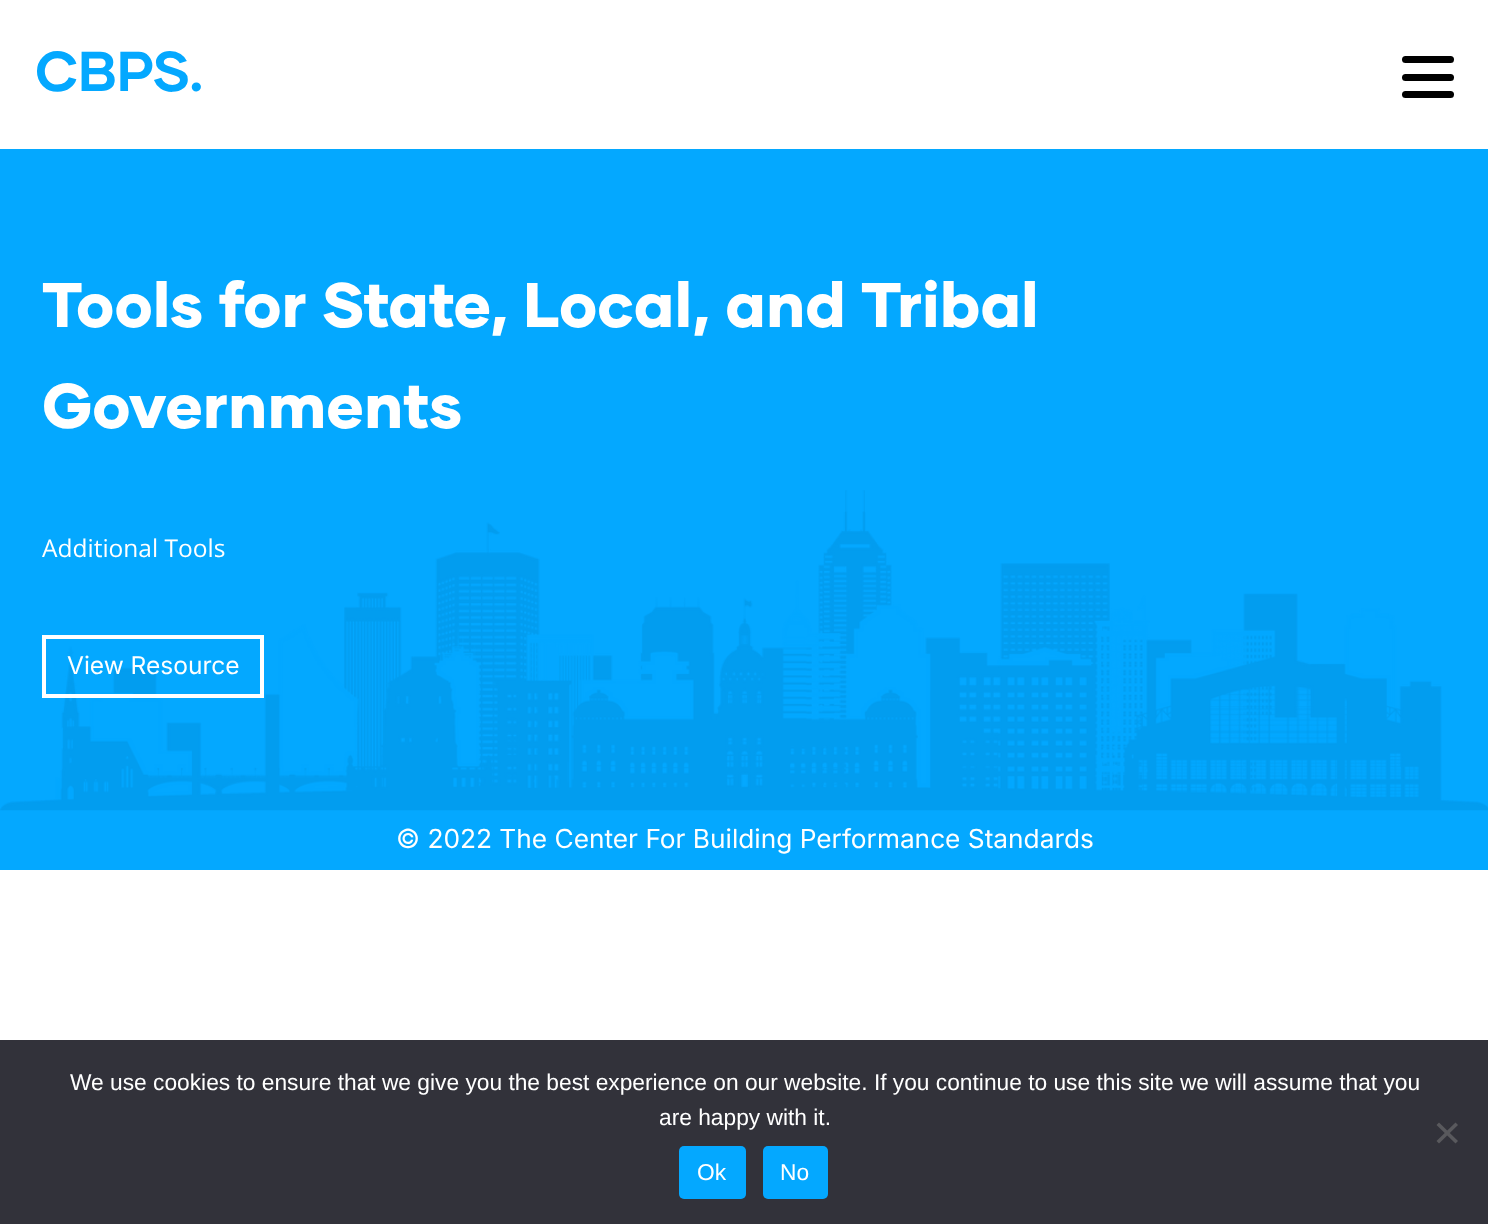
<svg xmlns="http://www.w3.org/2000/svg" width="1488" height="1224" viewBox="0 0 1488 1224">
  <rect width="100%" height="100%" fill="#fff"/>
  <rect x="1402" y="56" width="52" height="7" rx="3.5" fill="#000"/>
  <rect x="1402" y="74" width="52" height="7" rx="3.5" fill="#000"/>
  <rect x="1402" y="91" width="52" height="7" rx="3.5" fill="#000"/>
  <path d="M0 149h1488v721H0z" fill="#04a8ff"/>
  <image x="0" y="490" width="1488" height="321" href="img/1.png"/>
  <path d="M44 637h218v59H44z" fill="none" stroke="#fff" stroke-width="4"/>
  <path d="M0 1040h1488v184H0z" fill="#32323a"/>
  <path d="M1455.5 1122.5L1458 1125L1439 1143.5L1436.5 1141Z" fill="#59595d"/>
  <path d="M1436.5 1125L1439 1122.5L1458 1141L1455.5 1143.5Z" fill="#59595d"/>
  <rect x="679" y="1146" width="67" height="53" rx="5" fill="#04a8ff"/>
  <rect x="763" y="1146" width="65" height="53" rx="5" fill="#04a8ff"/>
  <text x="35" y="91" font-family="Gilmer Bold" font-size="56" font-weight="bold" fill="#04a8ff">CBPS.</text>
  <g font-family="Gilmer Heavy" font-size="63" font-weight="900" fill="#fff">
    <text x="42" y="327">Tools for State, Local, and Tribal</text>
    <text x="42" y="428">Governments</text>
  </g>
  <text x="42" y="557" font-family="Open Sans" font-size="24.5" fill="#fff">Additional Tools</text>
  <text x="67" y="674" font-family="Inter" font-size="24.5" fill="#fff">View Resource</text>
  <text x="396" y="848" font-family="Inter" font-size="26.25" fill="#fff">© 2022 The Center For Building Performance Standards</text>
  <g font-family="Liberation Sans" font-size="22.75" fill="#fff">
    <text x="70" y="1090">We use cookies to ensure that we give you the best experience on our website. If you continue to use this site we will assume that you</text>
    <text x="659" y="1125">are happy with it.</text>
    <text x="697" y="1180">Ok</text>
    <text x="780" y="1180">No</text>
  </g>
</svg>
